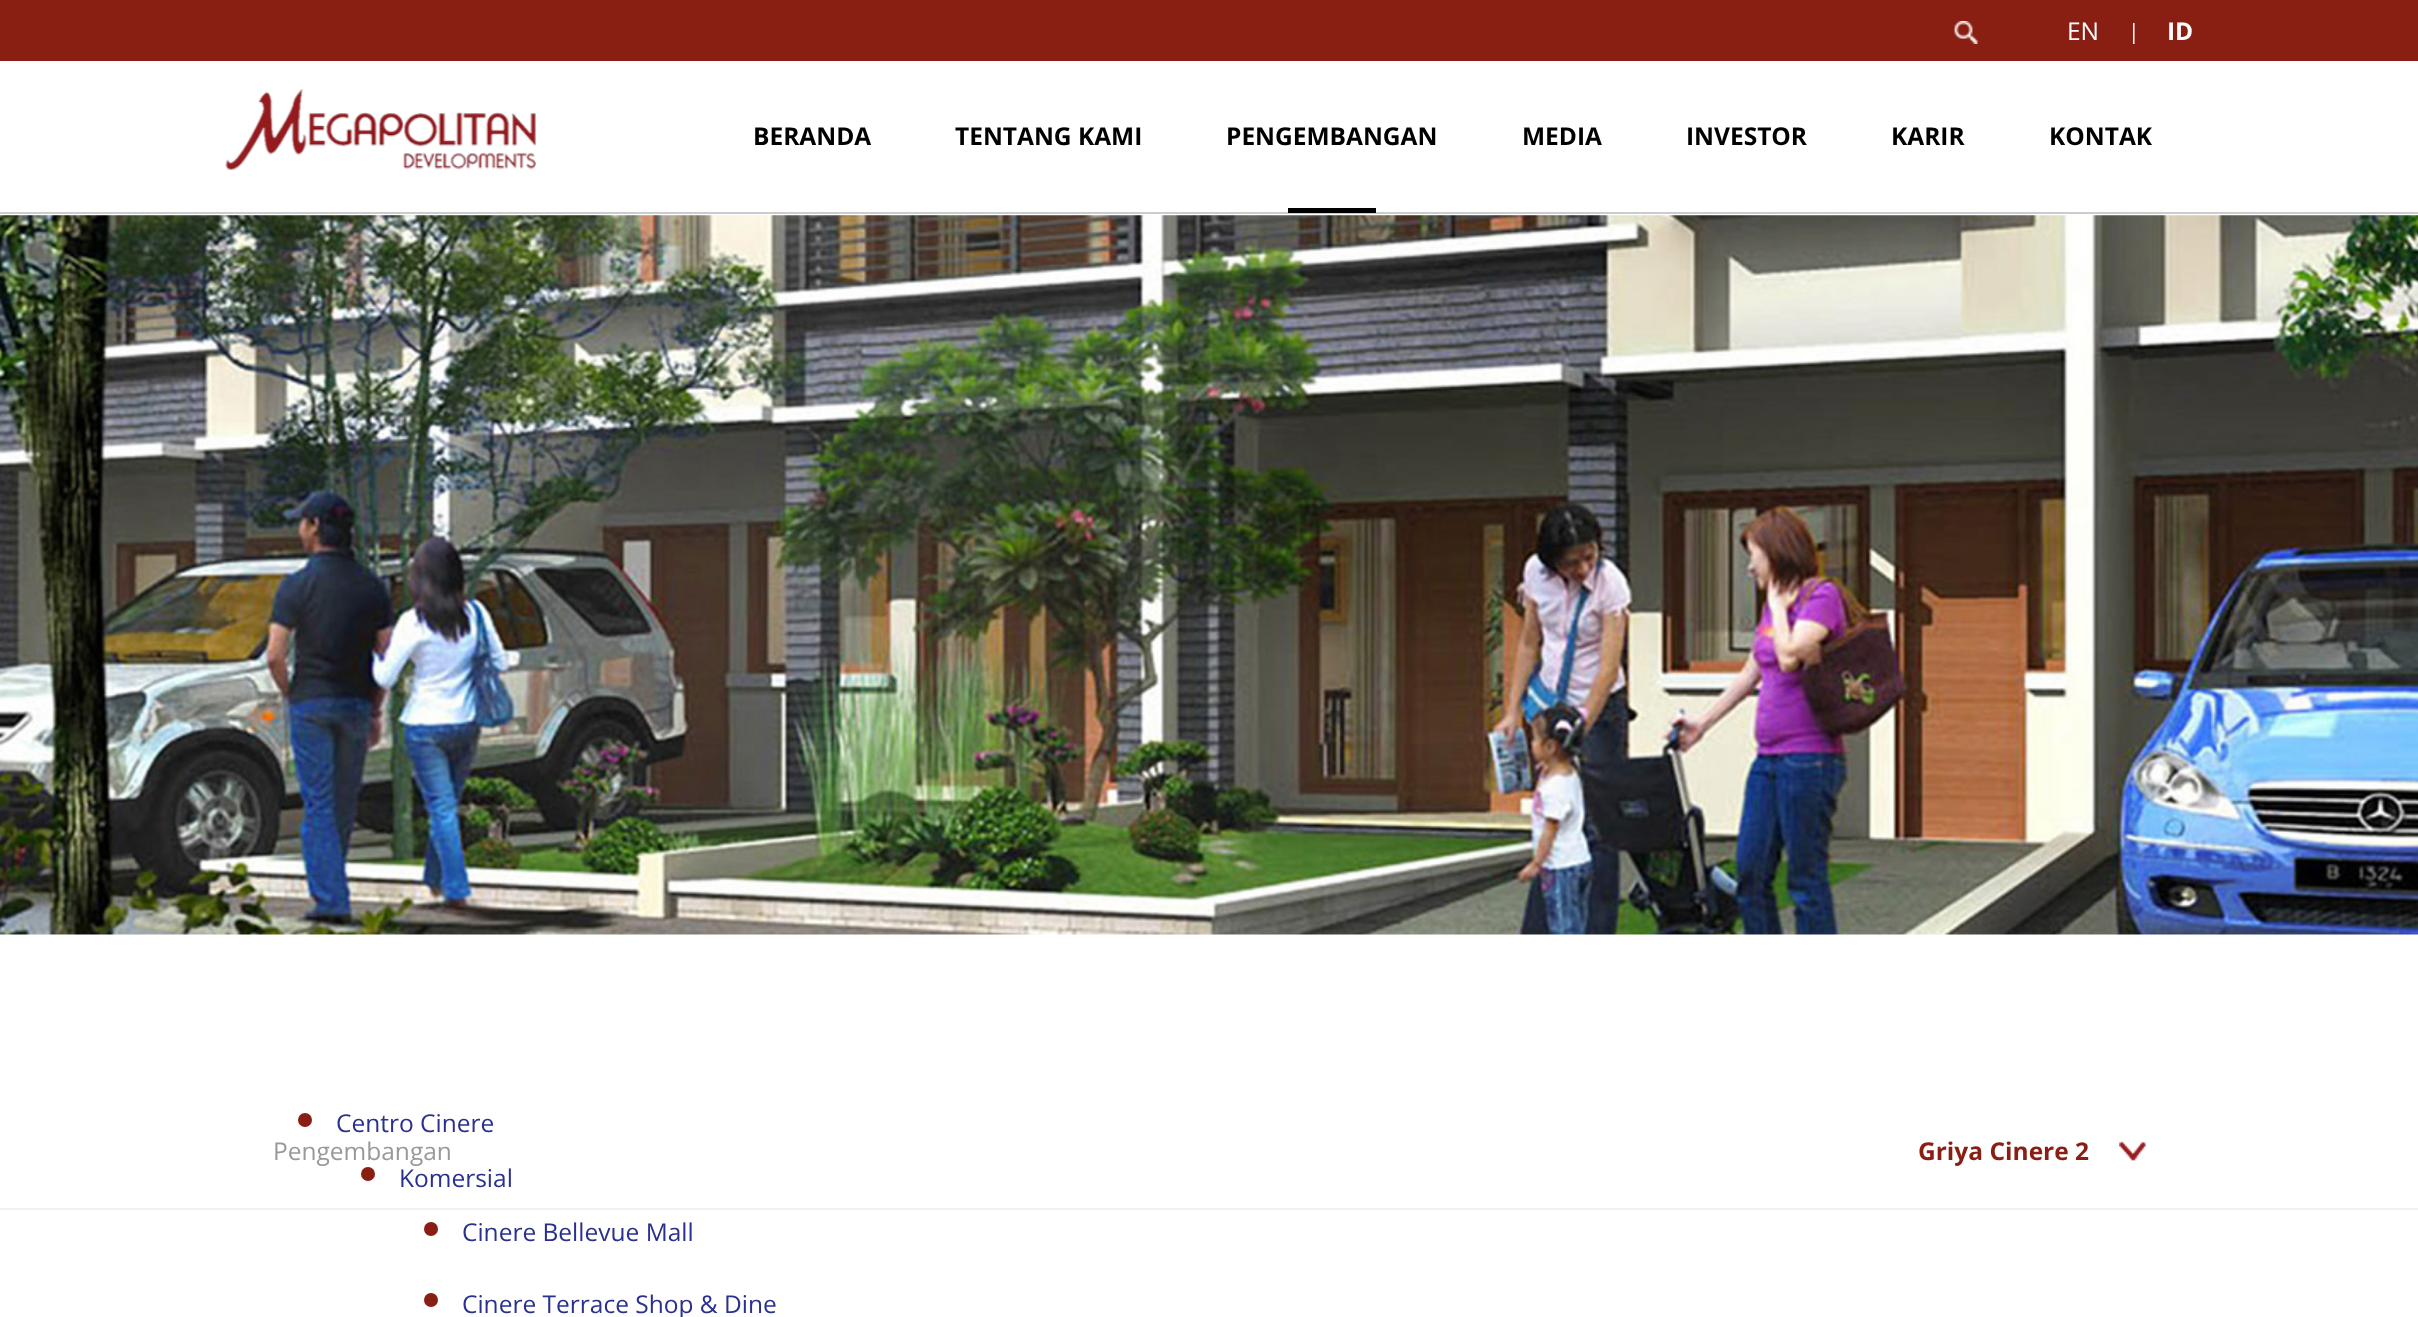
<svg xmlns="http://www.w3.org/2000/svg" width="2418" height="1317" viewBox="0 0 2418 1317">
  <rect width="100%" height="100%" fill="#fff"/>
  <path d="M0 0h2418v61H0z" fill="#891e13"/>
  <image x="1953" y="21" width="25" height="23" href="img/1.png"/>
  <path d="M0 212h2418v2H0z" fill="#ccc"/>
  <image x="225" y="89" width="311" height="81" href="img/2.png"/>
  <path d="M1288 208h88v5H1288z" fill="#000"/>
  <image x="0" y="215" width="2418" height="720" href="img/3.png"/>
  <circle cx="305" cy="1120" r="7" fill="#891e13"/>
  <circle cx="368" cy="1174" r="7" fill="#891e13"/>
  <circle cx="431" cy="1229" r="7" fill="#891e13"/>
  <circle cx="431" cy="1300" r="7" fill="#891e13"/>
  <path d="M0 1208h2418v2H0z" fill="#f1f1f1"/>
  <image x="2119" y="1141" width="27" height="20" href="img/4.png"/>
  <image x="2119" y="1141" width="27" height="20" href="img/5.png"/>
  <text x="2067" y="40" font-family="Open Sans" font-size="24.5" fill="#fff">EN</text>
  <text x="2128" y="39" font-family="Open Sans" font-size="21" fill="#fff">|</text>
  <text x="2167" y="40" font-family="Open Sans" font-size="24.5" font-weight="bold" fill="#fff">ID</text>
  <g font-family="Open Sans" font-size="24.5" font-weight="bold" fill="#000">
    <text x="753" y="145">BERANDA</text>
    <text x="955" y="145">TENTANG KAMI</text>
    <text x="1226" y="145">PENGEMBANGAN</text>
    <text x="1522" y="145">MEDIA</text>
    <text x="1686" y="145">INVESTOR</text>
    <text x="1891" y="145">KARIR</text>
    <text x="2049" y="145">KONTAK</text>
  </g>
  <g font-family="Open Sans" font-size="24.5" fill="#29308e">
    <text x="336" y="1132">Centro Cinere</text>
    <text x="399" y="1187">Komersial</text>
    <text x="462" y="1241">Cinere Bellevue Mall</text>
    <text x="462" y="1313">Cinere Terrace Shop &amp; Dine</text>
  </g>
  <text x="273" y="1160" font-family="Open Sans" font-size="24.5" fill="#999">Pengembangan</text>
  <text x="1918" y="1160" font-family="Open Sans" font-size="24.5" font-weight="bold" fill="#891e13">Griya Cinere 2</text>
</svg>
